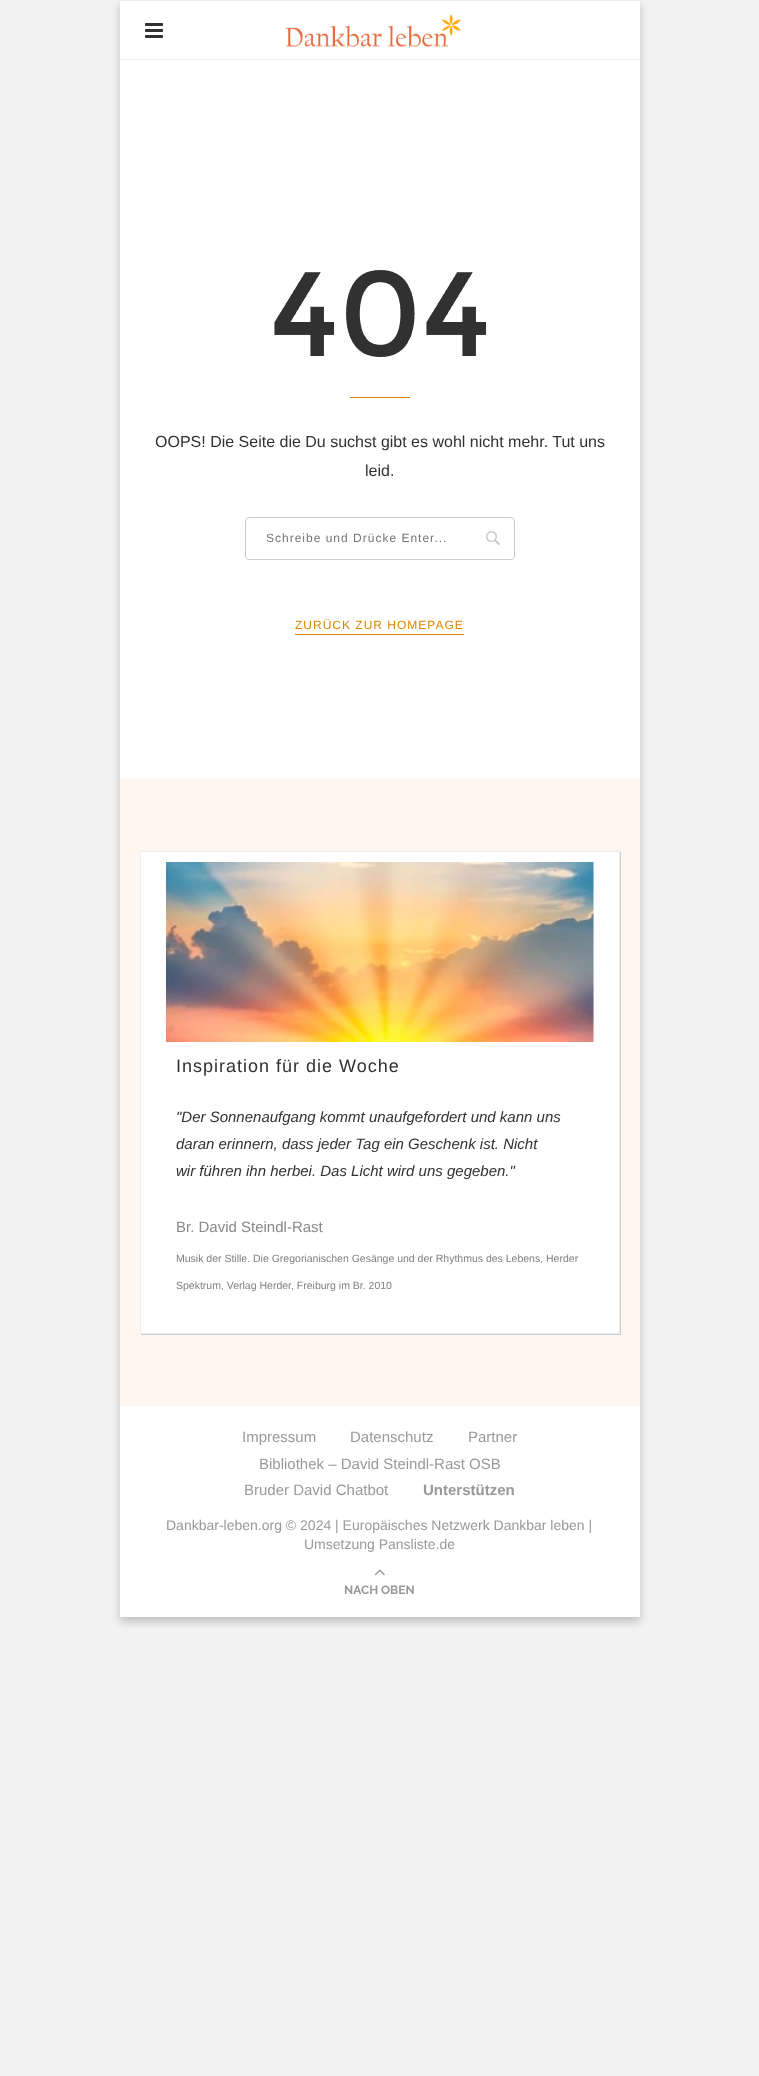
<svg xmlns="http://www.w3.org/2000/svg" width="759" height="2076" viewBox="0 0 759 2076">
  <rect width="100%" height="100%" fill="#f2f2f2"/>
  <path d="M120 5h520v1617H120z" fill="#00000033" filter="blur(4px)"/>
  <path d="M120 1h520v1616H120z" fill="#fff"/>
  <path d="M120 59h520v1H120z" fill="#ececec"/>
  <image x="145" y="23" width="18" height="15" href="img/1.png"/>
  <image x="285" y="14" width="176" height="34" href="img/2.png"/>
  <image x="274" y="270" width="212" height="87" href="img/3.png"/>
  <path d="M350 397h60v1H350z" fill="#dd8500"/>
  <image x="486" y="531" width="14" height="14" href="img/4.png"/>
  <rect x="245.5" y="517.5" width="269" height="42" rx="3.5" fill="none" stroke="#ccc"/>
  <path d="M295 634h169v1H295z" fill="#dd8500"/>
  <path d="M120 779h520v627H120z" fill="#fff7ef"/>
  <path d="M141 1334V1335H621V852H620V1334Z" fill="#ccc"/>
  <path d="M140.5 851.5h479v482H140.5z" fill="#fff" stroke="#ececec"/>
  <image x="166" y="862" width="428" height="180" href="img/5.png"/>
  <image x="374" y="1569" width="11" height="7" href="img/6.png"/>
  <g font-family="Liberation Sans" font-size="16" fill="#313131">
    <text x="155" y="447">OOPS! Die Seite die Du suchst gibt es wohl nicht mehr. Tut uns</text>
    <text x="365" y="476">leid.</text>
  </g>
  <text x="266" y="542" font-family="Liberation Sans" font-size="12" letter-spacing="1" fill="#757575">Schreibe und Drücke Enter...</text>
  <text x="295" y="629" font-family="Liberation Sans" font-size="12" letter-spacing="1" fill="#dd8500">ZURÜCK ZUR HOMEPAGE</text>
  <text x="176" y="1072" font-family="Liberation Sans" font-size="18" letter-spacing="1" fill="#313131">Inspiration für die Woche</text>
  <g font-family="Liberation Sans" font-size="15" font-style="italic" fill="#313131">
    <text x="176" y="1122">"Der Sonnenaufgang kommt unaufgefordert und kann uns</text>
    <text x="176" y="1149">daran erinnern, dass jeder Tag ein Geschenk ist. Nicht</text>
    <text x="176" y="1176">wir führen ihn herbei. Das Licht wird uns gegeben."</text>
  </g>
  <text x="176" y="1232" font-family="Liberation Sans" font-size="15" fill="#898989">Br. David Steindl-Rast</text>
  <g font-family="Liberation Sans" font-size="10.5" fill="#808080">
    <text x="176" y="1262">Musik der Stille. Die Gregorianischen Gesänge und der Rhythmus des Lebens, Herder</text>
    <text x="176" y="1289">Spektrum, Verlag Herder, Freiburg im Br. 2010</text>
  </g>
  <g font-family="Liberation Sans" font-size="15" fill="#999">
    <text x="242" y="1442">Impressum</text>
    <text x="350" y="1442">Datenschutz</text>
    <text x="468" y="1442">Partner</text>
    <text x="259" y="1469">Bibliothek – David Steindl-Rast OSB</text>
    <text x="244" y="1495">Bruder David Chatbot</text>
  </g>
  <text x="423" y="1495" font-family="Liberation Sans" font-size="15" font-weight="bold" fill="#999">Unterstützen</text>
  <g font-family="Liberation Sans" font-size="14" fill="#999">
    <text x="166" y="1530">Dankbar-leben.org © 2024 | Europäisches Netzwerk Dankbar leben |</text>
    <text x="304" y="1549">Umsetzung Pansliste.de</text>
  </g>
  <text x="344" y="1594" font-family="Raleway" font-size="12" font-weight="bold" fill="#999">NACH OBEN</text>
</svg>
